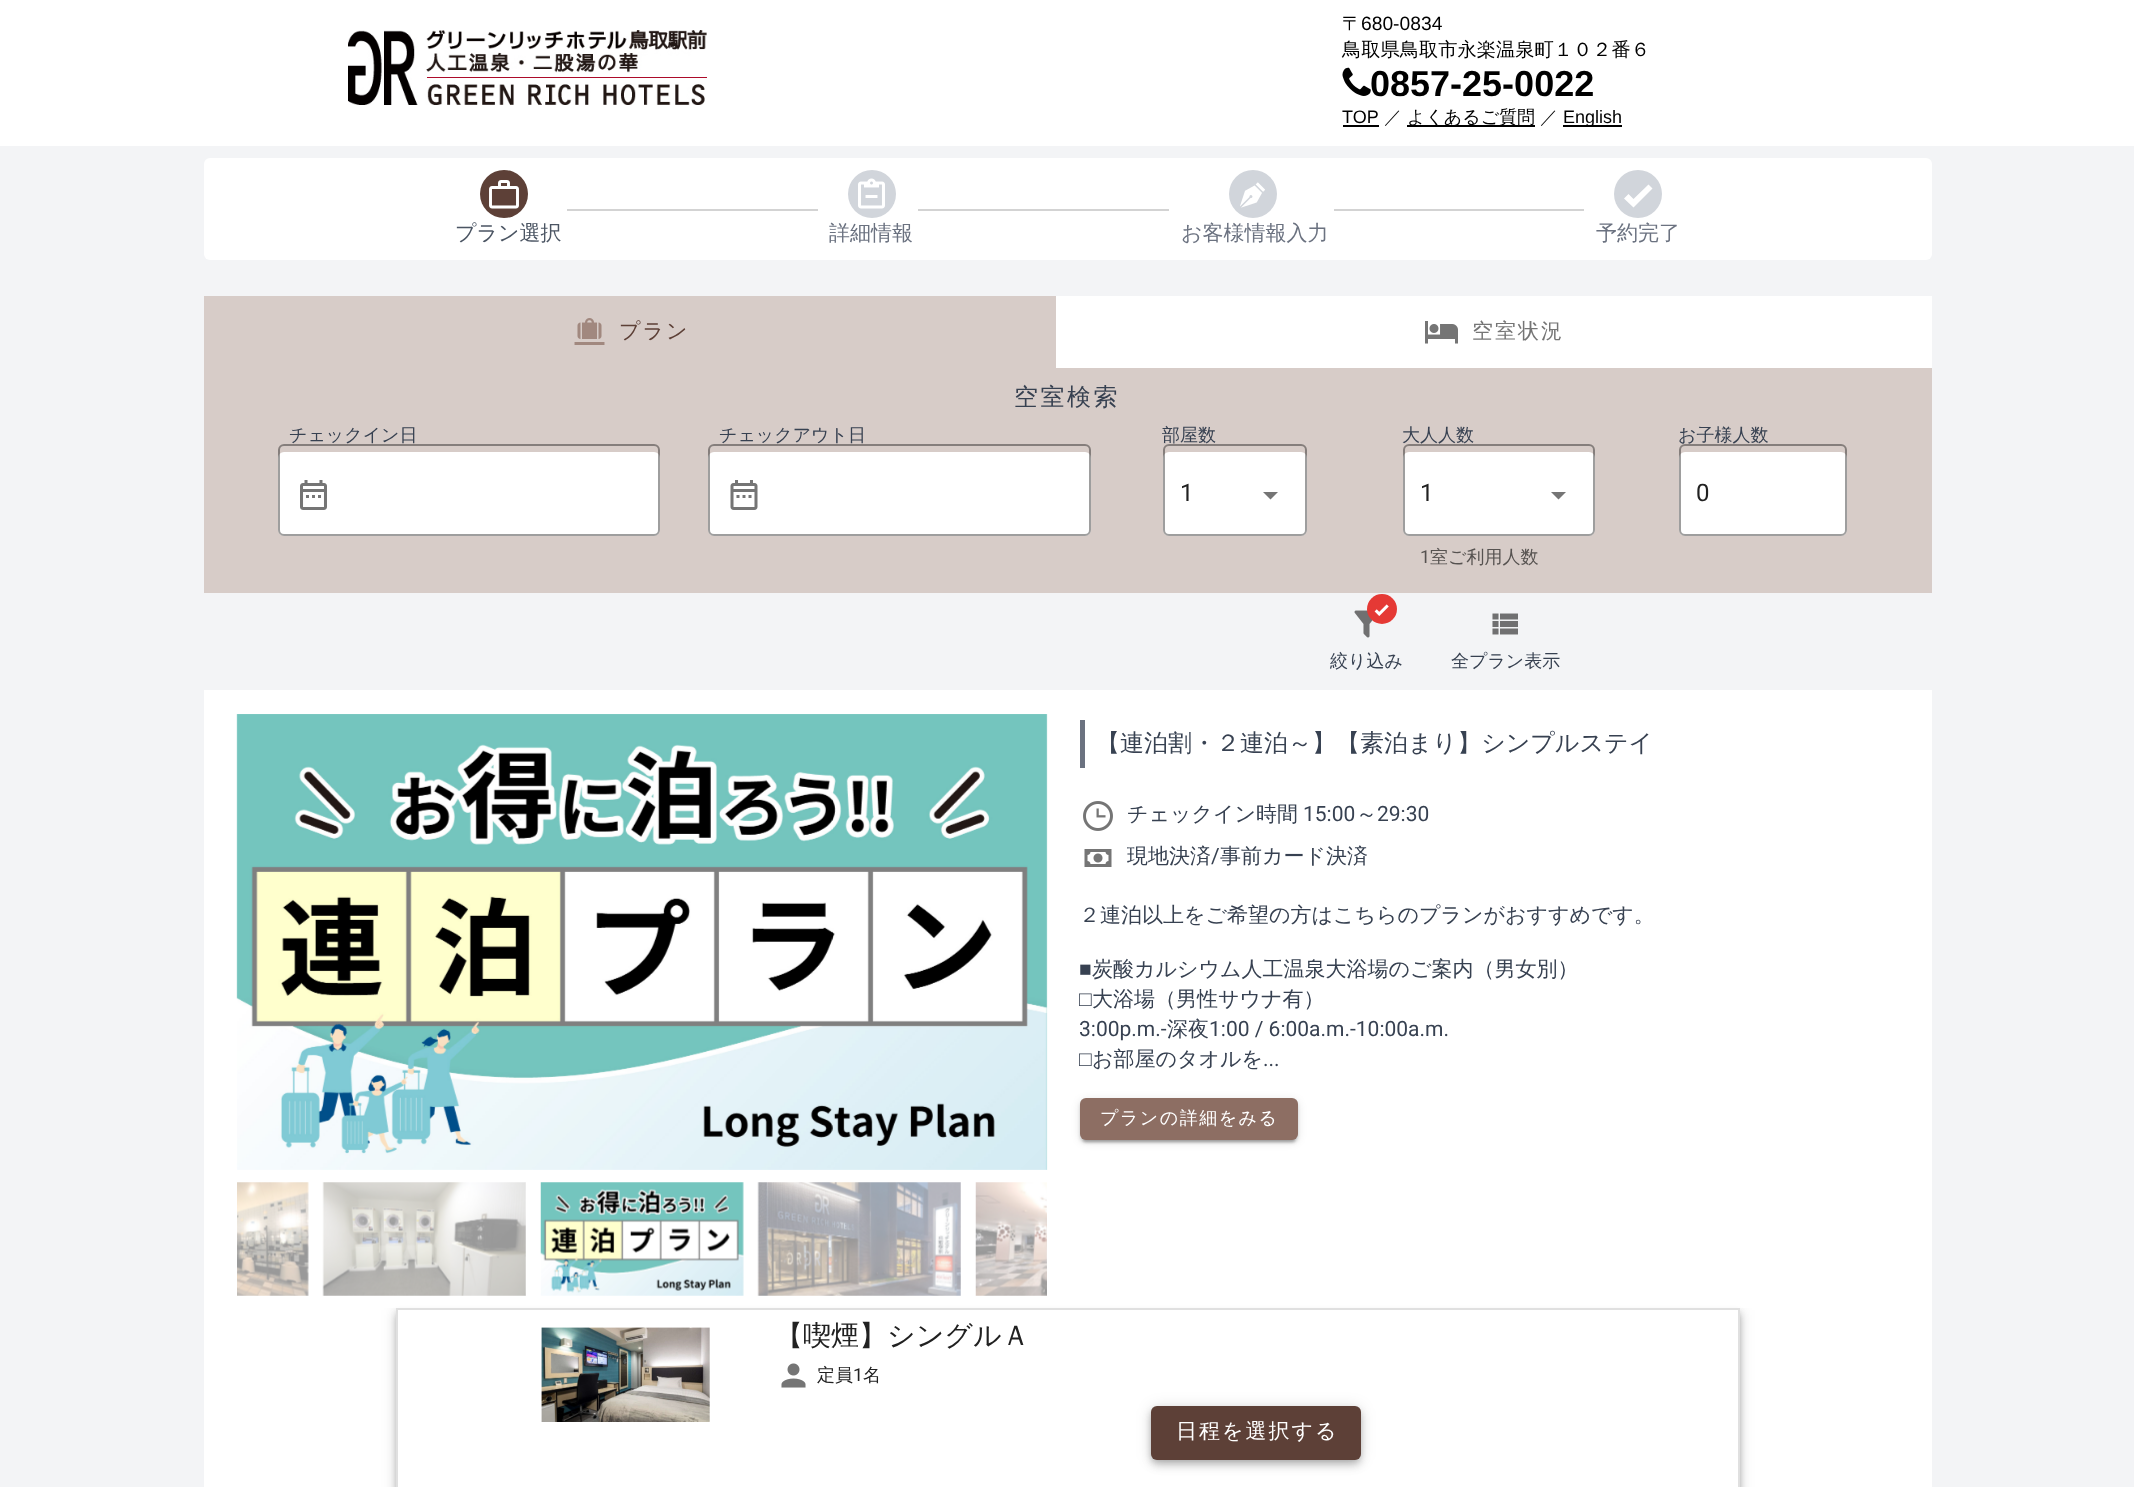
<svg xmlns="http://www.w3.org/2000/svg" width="2134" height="1487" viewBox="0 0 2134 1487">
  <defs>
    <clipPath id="clip1"><path d="M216 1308h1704v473H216z"/></clipPath>
    <clipPath id="clip2"><path d="M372 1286H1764V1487H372ZM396 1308H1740V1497H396Z" clip-rule="evenodd"/></clipPath>
    <clipPath id="clip3"><path d="M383 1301H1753V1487H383ZM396 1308H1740V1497H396Z" clip-rule="evenodd"/></clipPath>
    <clipPath id="clip4"><path d="M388 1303H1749V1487H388ZM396 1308H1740V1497H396Z" clip-rule="evenodd"/></clipPath>
  </defs>
  <rect width="100%" height="100%" fill="#fff"/>
  <image x="348" y="30" width="359" height="75" href="img/1.png"/>
  <image x="1342" y="67" width="29" height="29" href="img/2.png"/>
  <path d="M1343 125h36v2H1343z" fill="#000"/>
  <path d="M1407 125h128v2H1407z" fill="#000"/>
  <path d="M1563 125h59v2H1563z" fill="#000"/>
  <path d="M0 146h2134v1341H0z" fill="#f3f4f6"/>
  <rect x="204" y="158" width="1728" height="102" rx="6" fill="#fff"/>
  <path d="M567 209h251v2H567z" fill="#d3d3d3"/>
  <circle cx="504" cy="194" r="24" fill="#5d4037"/>
  <image x="489" y="180" width="30" height="29" href="img/3.png"/>
  <path d="M918 209h251v2H918z" fill="#d3d3d3"/>
  <circle cx="872" cy="194" r="24" fill="#d1d5db"/>
  <image x="858" y="178" width="27" height="31" href="img/4.png"/>
  <path d="M1334 209h250v2H1334z" fill="#d3d3d3"/>
  <circle cx="1253" cy="194" r="24" fill="#d1d5db"/>
  <image x="1240" y="182" width="25" height="26" href="img/5.png"/>
  <circle cx="1638" cy="194" r="24" fill="#d1d5db"/>
  <path d="M1633.5 207.5L1624 198.5L1628.5 194L1633.5 199L1648.5 184.5L1652.5 188.5Z" fill="#fff"/>
  <path d="M1056 296h876v72H1056z" fill="#fff"/>
  <path d="M204 296h852v72H204z" fill="#d7ccc8"/>
  <image x="574" y="318" width="31" height="27" href="img/6.png"/>
  <image x="1425" y="321" width="33" height="23" href="img/7.png"/>
  <path d="M204 690h1728v797H204z" fill="#fff"/>
  <path d="M204 368h1728v225H204z" fill="#d7ccc8"/>
  <rect x="278" y="452" width="382" height="84" rx="6" fill="#fff"/>
  <image x="300" y="480" width="27" height="30" href="img/8.png"/>
  <rect x="279" y="445" width="380" height="90" rx="5" fill="none" stroke="#00000061" stroke-width="2"/>
  <rect x="708" y="452" width="383" height="84" rx="6" fill="#fff"/>
  <image x="730" y="480" width="28" height="30" href="img/9.png"/>
  <rect x="709" y="445" width="381" height="90" rx="5" fill="none" stroke="#00000061" stroke-width="2"/>
  <rect x="1163" y="452" width="144" height="84" rx="6" fill="#fff"/>
  <rect x="1164" y="445" width="142" height="90" rx="5" fill="none" stroke="#00000061" stroke-width="2"/>
  <path d="M1263 492L1270.5 499.5L1278 492Z" fill="#757575"/>
  <rect x="1403" y="452" width="192" height="84" rx="6" fill="#fff"/>
  <rect x="1404" y="445" width="190" height="90" rx="5" fill="none" stroke="#00000061" stroke-width="2"/>
  <path d="M1551 492L1558.5 499.5L1566 492Z" fill="#757575"/>
  <rect x="1679" y="452" width="168" height="84" rx="6" fill="#fff"/>
  <rect x="1680" y="445" width="166" height="90" rx="5" fill="none" stroke="#00000061" stroke-width="2"/>
  <image x="1354" y="610" width="19" height="28" href="img/10.png"/>
  <circle cx="1382" cy="609" r="15" fill="#e53935"/>
  <image x="1374" y="604" width="15" height="12" href="img/11.png"/>
  <image x="1492" y="613" width="26" height="22" href="img/12.png"/>
  <image x="236" y="714" width="812" height="456" href="img/13.png"/>
  <image x="237" y="1182" width="72" height="114" href="img/14.png"/>
  <g clip-path="url(#clip1)">
    <g clip-path="url(#clip2)">
      <path d="M396 1310h1344v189H396z" fill="#0000001f" filter="blur(7.5px)"/>
    </g>
  </g>
  <image x="322" y="1182" width="204" height="114" href="img/15.png"/>
  <image x="540" y="1182" width="204" height="114" href="img/16.png"/>
  <image x="757" y="1182" width="204" height="114" href="img/17.png"/>
  <image x="975" y="1182" width="72" height="114" href="img/18.png"/>
  <path d="M1080 720h5v48H1080z" fill="#6b7280"/>
  <image x="1083" y="801" width="30" height="30" href="img/19.png"/>
  <image x="1084" y="849" width="28" height="18" href="img/20.png"/>
  <rect x="1080" y="1100" width="218" height="42" rx="6" fill="#0000001f" filter="blur(4px)"/>
  <rect x="1080" y="1101" width="218" height="42" rx="6" fill="#00000024" filter="blur(1.5px)"/>
  <rect x="1083" y="1106" width="212" height="36" rx="3" fill="#00000033" filter="blur(1px)"/>
  <rect x="1080" y="1098" width="218" height="42" rx="6" fill="#8d6e63"/>
  <g clip-path="url(#clip3)">
    <path d="M396 1314h1344v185H396z" fill="#00000024" filter="blur(4px)"/>
  </g>
  <g clip-path="url(#clip4)">
    <path d="M398 1313h1341v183H398z" fill="#00000033" filter="blur(3px)"/>
  </g>
  <path d="M397 1309h1342v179H397z" fill="none" stroke="#e0e0e0" stroke-width="2"/>
  <image x="541" y="1327" width="169" height="95" href="img/21.png"/>
  <image x="781" y="1363" width="25" height="25" href="img/22.png"/>
  <rect x="1151" y="1407" width="210" height="54" rx="6" fill="#0000001f" filter="blur(7.5px)"/>
  <rect x="1151" y="1412" width="210" height="54" rx="6" fill="#00000024" filter="blur(4px)"/>
  <rect x="1152" y="1410" width="207" height="51" rx="5" fill="#00000033" filter="blur(3px)"/>
  <rect x="1151" y="1406" width="210" height="54" rx="6" fill="#5d4037"/>
  <text x="1342" y="30" font-family="WenQuanYi Zen Hei" font-size="19.25" font-weight="500" fill="#000">〒</text>
  <text x="1361" y="30" font-family="Liberation Sans" font-size="19.25" fill="#000">680-0834</text>
  <text x="1342" y="56" font-family="WenQuanYi Zen Hei" font-size="19.25" font-weight="500" fill="#000">鳥取県鳥取市永楽温泉町１０２番６</text>
  <text x="1370" y="96" font-family="Liberation Sans" font-size="36" font-weight="bold" fill="#000">0857-25-0022</text>
  <text x="1342" y="123" font-family="Liberation Sans" font-size="18" fill="#000">TOP</text>
  <g font-family="WenQuanYi Zen Hei" font-size="18" font-weight="500" fill="#000">
    <text x="1384" y="123">／</text>
    <text x="1407" y="123">よくあるご質問</text>
    <text x="1540" y="123">／</text>
  </g>
  <text x="1563" y="123" font-family="Liberation Sans" font-size="18" fill="#000">English</text>
  <text x="455" y="240" font-family="WenQuanYi Zen Hei" font-size="21" font-weight="500" fill="#4b5563">プラン選択</text>
  <g font-family="WenQuanYi Zen Hei" font-size="21" font-weight="500" fill="#6b7280">
    <text x="829" y="240">詳細情報</text>
    <text x="1181" y="240">お客様情報入力</text>
    <text x="1596" y="240">予約完了</text>
  </g>
  <text x="619" y="338" font-family="WenQuanYi Zen Hei" font-size="21" font-weight="500" letter-spacing="2" fill="#5d4037">プラン</text>
  <text x="1472" y="338" font-family="WenQuanYi Zen Hei" font-size="21" font-weight="500" letter-spacing="2" fill="#757575">空室状況</text>
  <text x="1014" y="405" font-family="WenQuanYi Zen Hei" font-size="24" font-weight="500" letter-spacing="2.5" fill="#374151">空室検索</text>
  <g font-family="WenQuanYi Zen Hei" font-size="18" font-weight="500" fill="#374151">
    <text x="289" y="441">チェックイン日</text>
    <text x="719" y="441">チェックアウト日</text>
    <text x="1162" y="441">部屋数</text>
  </g>
  <text x="1180" y="501" font-family="Roboto" font-size="24" fill="#212121">1</text>
  <text x="1402" y="441" font-family="WenQuanYi Zen Hei" font-size="18" font-weight="500" fill="#374151">大人人数</text>
  <text x="1420" y="501" font-family="Roboto" font-size="24" fill="#212121">1</text>
  <text x="1420" y="563" font-family="Roboto" font-size="18" fill="#565250">1</text>
  <text x="1430" y="563" font-family="WenQuanYi Zen Hei" font-size="18" font-weight="500" fill="#565250">室ご利用人数</text>
  <text x="1678" y="441" font-family="WenQuanYi Zen Hei" font-size="18" font-weight="500" fill="#374151">お子様人数</text>
  <text x="1696" y="501" font-family="Roboto" font-size="24" fill="#212121">0</text>
  <g font-family="WenQuanYi Zen Hei" font-size="18" font-weight="500" fill="#374151">
    <text x="1330" y="667">絞り込み</text>
    <text x="1451" y="667">全プラン表示</text>
  </g>
  <text x="1096" y="751" font-family="WenQuanYi Zen Hei" font-size="24" font-weight="500" fill="#374151">【連泊割・２連泊～】【素泊まり】シンプルステイ</text>
  <text x="1127" y="821" font-family="WenQuanYi Zen Hei" font-size="21" font-weight="500" fill="#374151">チェックイン時間</text>
  <text x="1303" y="821" font-family="Roboto" font-size="21" fill="#374151">15:00</text>
  <text x="1356" y="821" font-family="WenQuanYi Zen Hei" font-size="21" font-weight="500" fill="#374151">～</text>
  <text x="1377" y="821" font-family="Roboto" font-size="21" fill="#374151">29:30</text>
  <text x="1127" y="863" font-family="WenQuanYi Zen Hei" font-size="21" font-weight="500" fill="#374151">現地決済</text>
  <text x="1211" y="863" font-family="Roboto" font-size="21" fill="#374151">/</text>
  <g font-family="WenQuanYi Zen Hei" font-size="21" font-weight="500" fill="#374151">
    <text x="1220" y="863">事前カード決済</text>
    <text x="1079" y="922">２連泊以上をご希望の方はこちらのプランがおすすめです。</text>
  </g>
  <text x="1079" y="976" font-family="Liberation Sans" font-size="21" fill="#374151">■</text>
  <text x="1092" y="976" font-family="WenQuanYi Zen Hei" font-size="21" font-weight="500" fill="#374151">炭酸カルシウム人工温泉大浴場のご案内（男女別）</text>
  <text x="1079" y="1006" font-family="Liberation Sans" font-size="21" fill="#374151">□</text>
  <text x="1092" y="1006" font-family="WenQuanYi Zen Hei" font-size="21" font-weight="500" fill="#374151">大浴場（男性サウナ有）</text>
  <text x="1079" y="1036" font-family="Roboto" font-size="21" fill="#374151">3:00p.m.-</text>
  <text x="1167" y="1036" font-family="WenQuanYi Zen Hei" font-size="21" font-weight="500" fill="#374151">深夜</text>
  <text x="1209" y="1036" font-family="Roboto" font-size="21" fill="#374151">1:00 / 6:00a.m.-10:00a.m.</text>
  <text x="1079" y="1066" font-family="Liberation Sans" font-size="21" fill="#374151">□</text>
  <text x="1092" y="1066" font-family="WenQuanYi Zen Hei" font-size="21" font-weight="500" fill="#374151">お部屋のタオルを</text>
  <text x="1263" y="1066" font-family="Roboto" font-size="21" fill="#374151">...</text>
  <text x="1100" y="1124" font-family="WenQuanYi Zen Hei" font-size="18" font-weight="500" letter-spacing="1.5" fill="#fff">プランの詳細をみる</text>
  <text x="775" y="1345" font-family="WenQuanYi Zen Hei" font-size="28" font-weight="500" fill="#212121">【喫煙】シングルＡ</text>
  <text x="817" y="1381" font-family="WenQuanYi Zen Hei" font-size="18" font-weight="500" fill="#212121">定員</text>
  <text x="853" y="1381" font-family="Roboto" font-size="18" fill="#212121">1</text>
  <text x="863" y="1381" font-family="WenQuanYi Zen Hei" font-size="18" font-weight="500" fill="#212121">名</text>
  <text x="1176" y="1438" font-family="WenQuanYi Zen Hei" font-size="21" font-weight="500" letter-spacing="2" fill="#fff">日程を選択する</text>
</svg>
